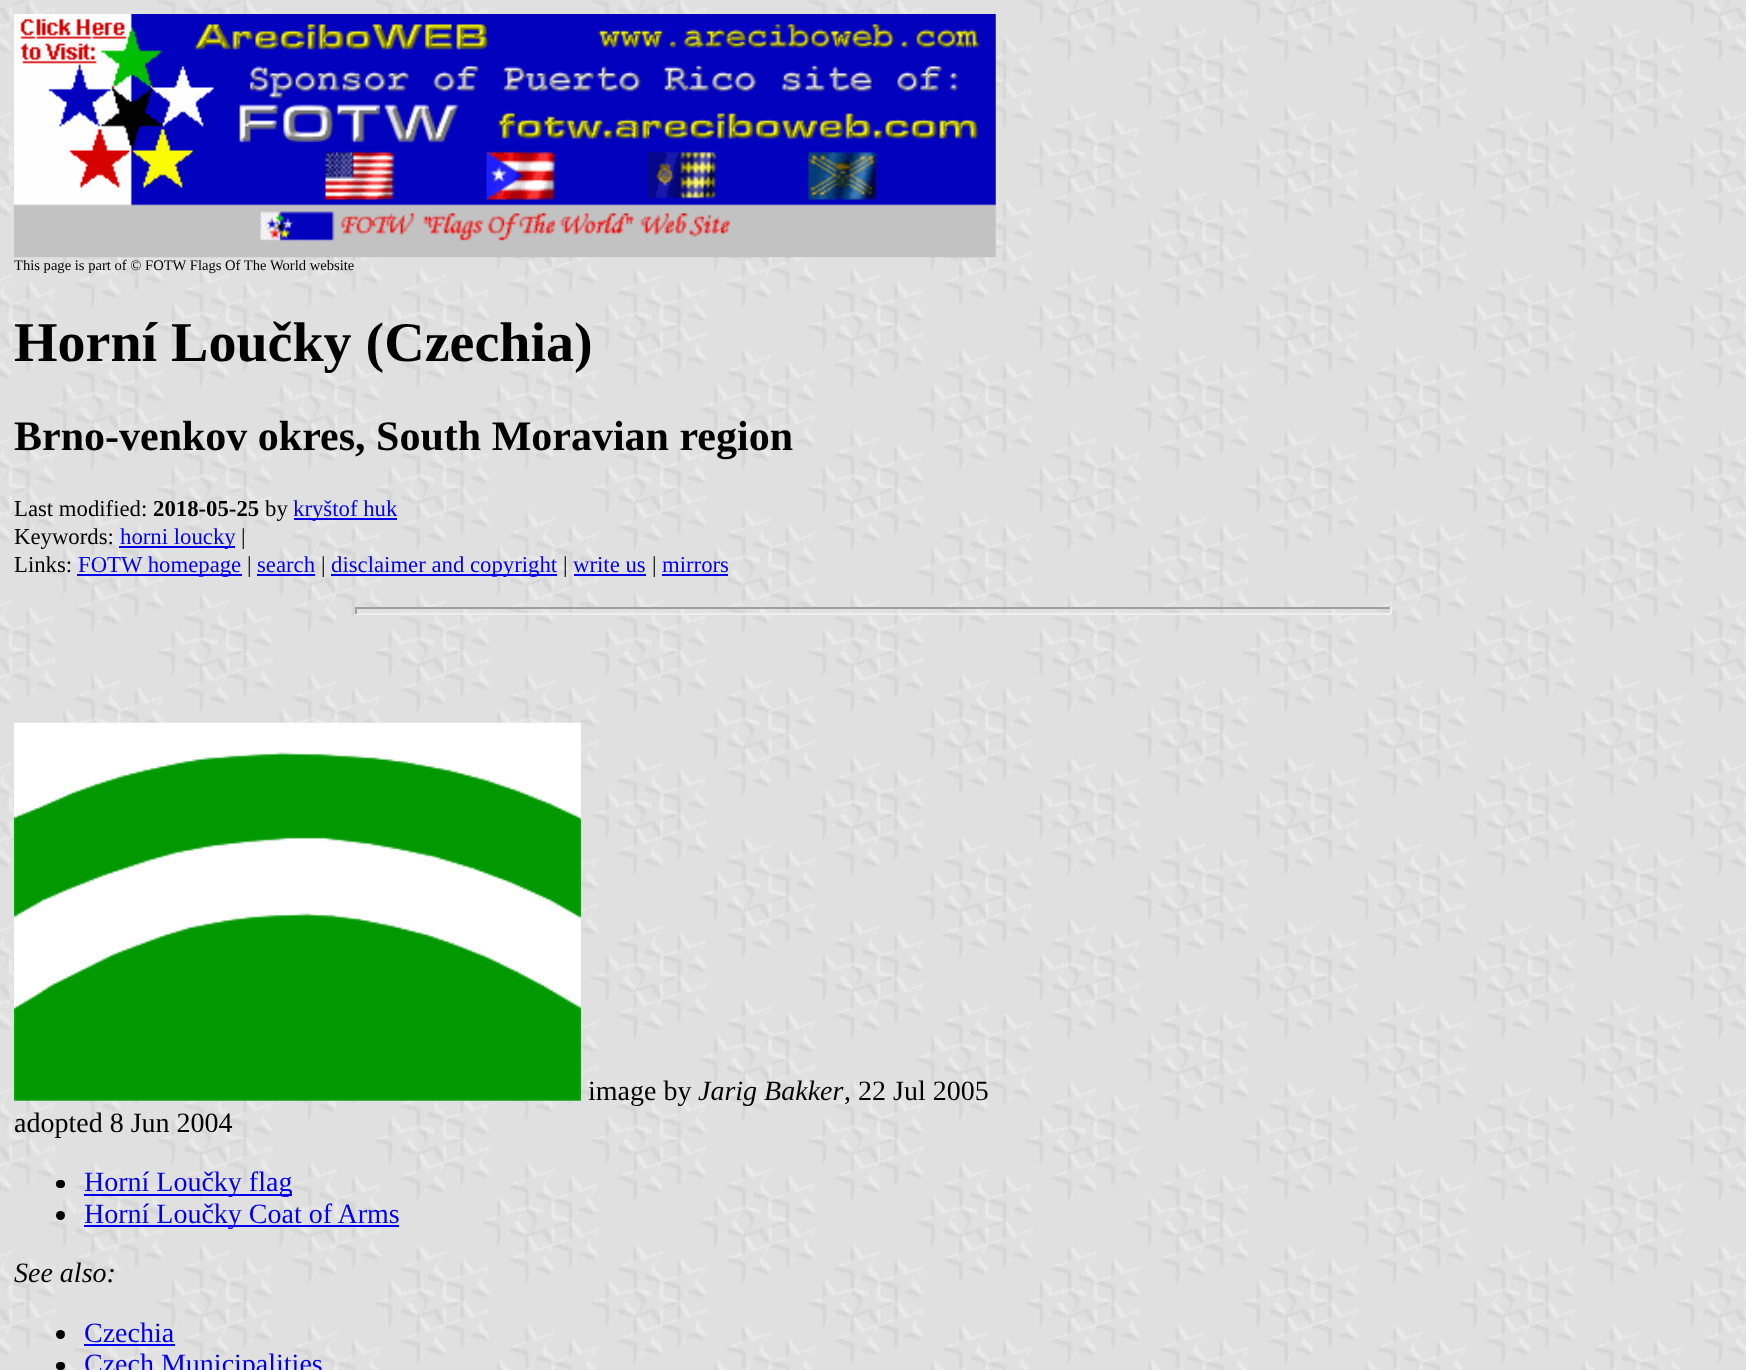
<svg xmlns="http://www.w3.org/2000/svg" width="1746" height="1370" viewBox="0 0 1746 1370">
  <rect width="100%" height="100%" fill="#fff"/>
  <image x="0" y="0" width="1746" height="1370" href="img/1.png"/>
  <image x="14" y="14" width="982" height="244" href="img/2.png"/>
  <path d="M294 518h103v2H294z" fill="#00e"/>
  <path d="M119 546h116v2H119z" fill="#00e"/>
  <path d="M77 574h165v2H77z" fill="#00e"/>
  <path d="M257 574h58v2H257z" fill="#00e"/>
  <path d="M331 574h226v2H331z" fill="#00e"/>
  <path d="M574 574h72v2H574z" fill="#00e"/>
  <path d="M662 574h66v2H662z" fill="#00e"/>
  <path d="M355 607h1036v2H355z" fill="#9f9f9f"/>
  <path d="M1390 607h2v7H1390z" fill="#eee"/>
  <path d="M355 613h1036v2H355z" fill="#eee"/>
  <path d="M355 607h2v7H355z" fill="#9f9f9f"/>
  <image x="14" y="722" width="567" height="379" href="img/3.png"/>
  <rect x="56" y="1180" width="9" height="8" rx="4" fill="#000"/>
  <path d="M84 1194h208v2H84z" fill="#00e"/>
  <circle cx="60.5" cy="1215.5" r="4.5" fill="#000"/>
  <path d="M84 1225h315v2H84z" fill="#00e"/>
  <circle cx="60.5" cy="1334.5" r="4.5" fill="#000"/>
  <path d="M84 1344h91v2H84z" fill="#00e"/>
  <rect x="56" y="1362" width="9" height="8" rx="4" fill="#000"/>
  <text x="14" y="270" font-family="Liberation Serif" font-size="14.6" fill="#000">This page is part of © FOTW Flags Of The World website</text>
  <text x="14" y="361" font-family="Liberation Serif" font-size="56" font-weight="bold" fill="#000">Horní Loučky (Czechia)</text>
  <text x="14" y="450" font-family="Liberation Serif" font-size="42" font-weight="bold" fill="#000">Brno-venkov okres, South Moravian region</text>
  <text x="14" y="516" font-family="Liberation Serif" font-size="22.75" fill="#000">Last modified:</text>
  <text x="153" y="516" font-family="Liberation Serif" font-size="22.75" font-weight="bold" fill="#000">2018-05-25</text>
  <text x="265" y="516" font-family="Liberation Serif" font-size="22.75" fill="#000">by</text>
  <text x="293" y="516" font-family="Liberation Serif" font-size="22.75" fill="#00e">kryštof huk</text>
  <text x="14" y="544" font-family="Liberation Serif" font-size="22.75" fill="#000">Keywords:</text>
  <text x="120" y="544" font-family="Liberation Serif" font-size="22.75" fill="#00e">horni loucky</text>
  <g font-family="Liberation Serif" font-size="22.75" fill="#000">
    <text x="241" y="544">|</text>
    <text x="14" y="572">Links:</text>
  </g>
  <text x="78" y="572" font-family="Liberation Serif" font-size="22.75" fill="#00e">FOTW homepage</text>
  <text x="247" y="572" font-family="Liberation Serif" font-size="22.75" fill="#000">|</text>
  <text x="257" y="572" font-family="Liberation Serif" font-size="22.75" fill="#00e">search</text>
  <text x="321" y="572" font-family="Liberation Serif" font-size="22.75" fill="#000">|</text>
  <text x="331" y="572" font-family="Liberation Serif" font-size="22.75" fill="#00e">disclaimer and copyright</text>
  <text x="563" y="572" font-family="Liberation Serif" font-size="22.75" fill="#000">|</text>
  <text x="573" y="572" font-family="Liberation Serif" font-size="22.75" fill="#00e">write us</text>
  <text x="652" y="572" font-family="Liberation Serif" font-size="22.75" fill="#000">|</text>
  <text x="662" y="572" font-family="Liberation Serif" font-size="22.75" fill="#00e">mirrors</text>
  <text x="588" y="1100" font-family="Liberation Serif" font-size="28" fill="#000">image by</text>
  <text x="698" y="1100" font-family="Liberation Serif" font-size="28" font-style="italic" fill="#000">Jarig Bakker</text>
  <g font-family="Liberation Serif" font-size="28" fill="#000">
    <text x="844" y="1100">, 22 Jul 2005</text>
    <text x="14" y="1132">adopted 8 Jun 2004</text>
  </g>
  <g font-family="Liberation Serif" font-size="28" fill="#00e">
    <text x="84" y="1191">Horní Loučky flag</text>
    <text x="84" y="1223">Horní Loučky Coat of Arms</text>
  </g>
  <text x="14" y="1282" font-family="Liberation Serif" font-size="28" font-style="italic" fill="#000">See also:</text>
  <g font-family="Liberation Serif" font-size="28" fill="#00e">
    <text x="84" y="1342">Czechia</text>
    <text x="84" y="1373">Czech Municipalities</text>
  </g>
</svg>
